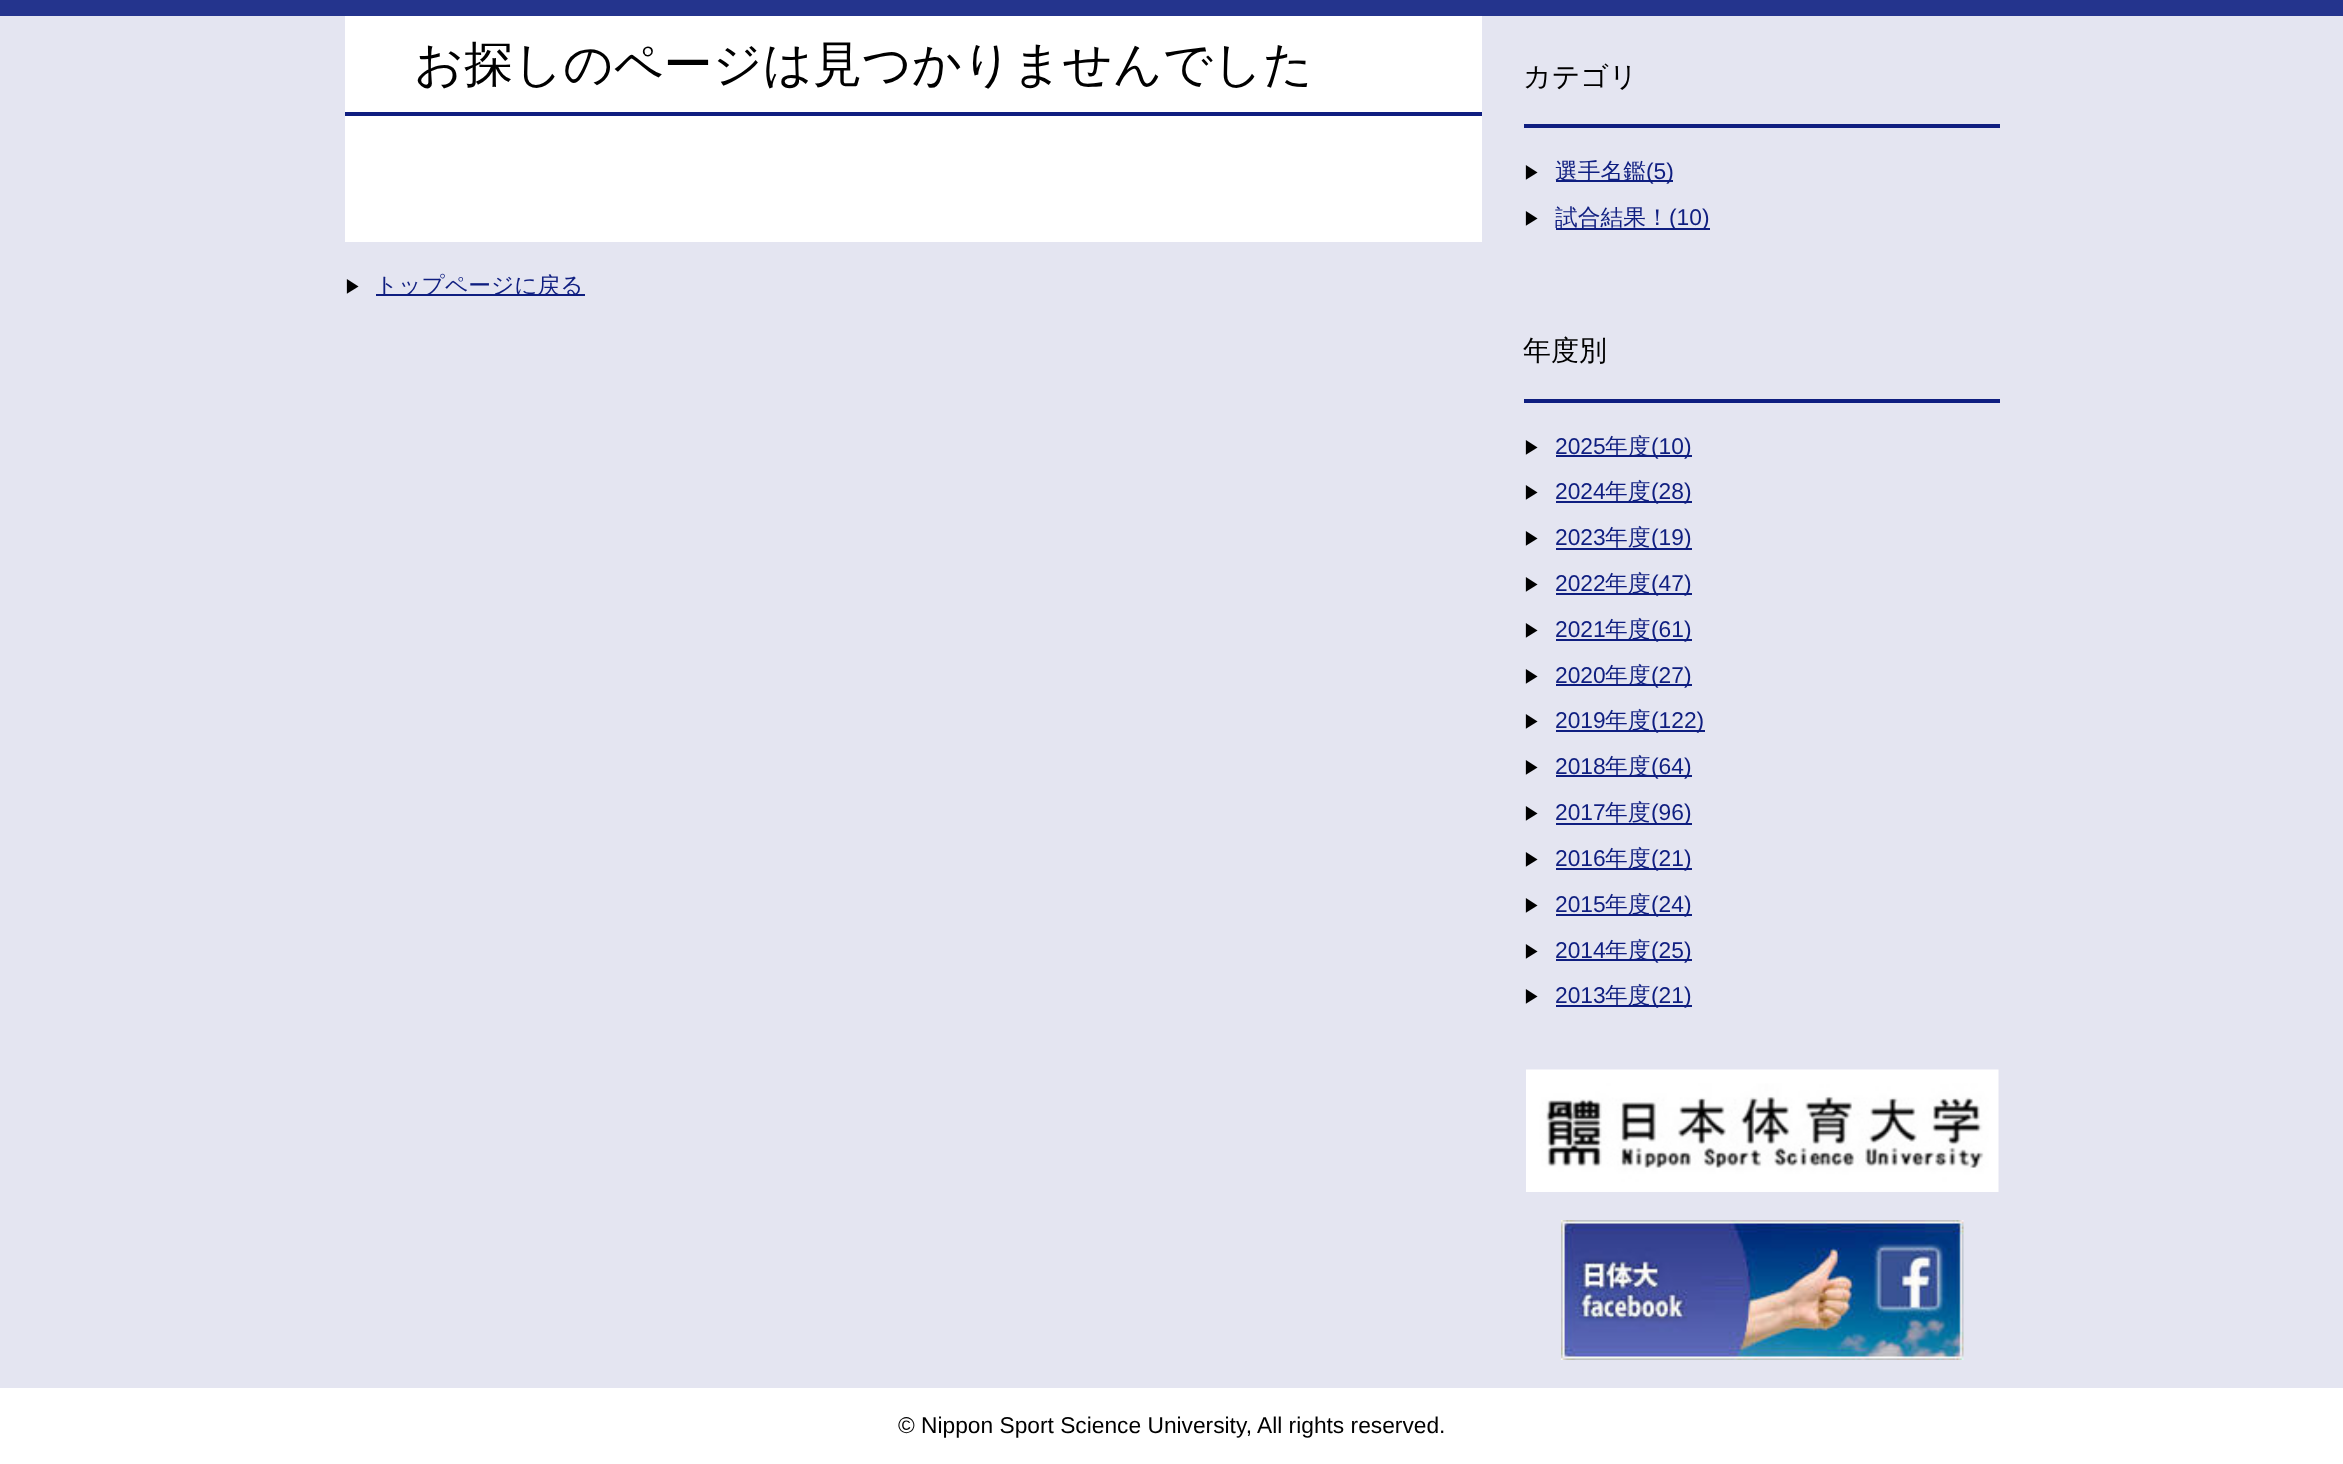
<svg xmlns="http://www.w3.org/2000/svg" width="2343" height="1464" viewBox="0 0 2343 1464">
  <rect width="100%" height="100%" fill="#fff"/>
  <path d="M0 0h2343v16H0z" fill="#24348d"/>
  <path d="M0 16h2343v1372H0z" fill="#e4e5f1"/>
  <path d="M345 16h1137v226H345z" fill="#fff"/>
  <path d="M345 112h1137v4H345z" fill="#0f1e80"/>
  <path d="M376 294h209v2H376z" fill="#0f1e80"/>
  <path d="M1524 124h476v4H1524z" fill="#0f1e80"/>
  <path d="M1556 180h117v2H1556z" fill="#0f1e80"/>
  <path d="M1556 228h154v2H1556z" fill="#0f1e80"/>
  <path d="M1524 399h476v4H1524z" fill="#0f1e80"/>
  <path d="M1556 455h136v2H1556z" fill="#0f1e80"/>
  <path d="M1556 501h136v2H1556z" fill="#0f1e80"/>
  <path d="M1556 548h136v2H1556z" fill="#0f1e80"/>
  <path d="M1556 593h136v2H1556z" fill="#0f1e80"/>
  <path d="M1556 639h136v2H1556z" fill="#0f1e80"/>
  <path d="M1556 684h136v2H1556z" fill="#0f1e80"/>
  <path d="M1556 730h149v2H1556z" fill="#0f1e80"/>
  <path d="M1556 775h136v2H1556z" fill="#0f1e80"/>
  <path d="M1556 823h136v2H1556z" fill="#0f1e80"/>
  <path d="M1556 868h136v2H1556z" fill="#0f1e80"/>
  <path d="M1556 914h136v2H1556z" fill="#0f1e80"/>
  <path d="M1556 959h136v2H1556z" fill="#0f1e80"/>
  <path d="M1556 1005h136v2H1556z" fill="#0f1e80"/>
  <image x="1526" y="1069" width="473" height="123" href="img/1.png"/>
  <image x="1561" y="1220" width="403" height="140" href="img/2.png"/>
  <text x="414" y="81" font-family="WenQuanYi Zen Hei" font-size="49" font-weight="500" fill="#000">お探しのページは見つかりませんでした</text>
  <text x="344" y="293" font-family="WenQuanYi Zen Hei" font-size="18" font-weight="500" fill="#000">▶︎</text>
  <text x="375" y="293" font-family="WenQuanYi Zen Hei" font-size="22.75" font-weight="500" fill="#0f1e80">トップページに戻る</text>
  <text x="1523" y="86" font-family="WenQuanYi Zen Hei" font-size="28" font-weight="500" fill="#000">カテゴリ</text>
  <text x="1523" y="179" font-family="WenQuanYi Zen Hei" font-size="18" font-weight="500" fill="#000">▶︎</text>
  <text x="1555" y="179" font-family="WenQuanYi Zen Hei" font-size="22.75" font-weight="500" fill="#0f1e80">選手名鑑</text>
  <text x="1646" y="179" font-family="Liberation Sans" font-size="22.75" fill="#0f1e80">(5)</text>
  <text x="1523" y="225" font-family="WenQuanYi Zen Hei" font-size="18" font-weight="500" fill="#000">▶︎</text>
  <text x="1555" y="225" font-family="WenQuanYi Zen Hei" font-size="22.75" font-weight="500" fill="#0f1e80">試合結果！</text>
  <text x="1669" y="225" font-family="Liberation Sans" font-size="22.75" fill="#0f1e80">(10)</text>
  <text x="1523" y="360" font-family="WenQuanYi Zen Hei" font-size="28" font-weight="500" fill="#000">年度別</text>
  <text x="1523" y="454" font-family="WenQuanYi Zen Hei" font-size="18" font-weight="500" fill="#000">▶︎</text>
  <text x="1555" y="454" font-family="Liberation Sans" font-size="22.75" fill="#0f1e80">2025</text>
  <text x="1605" y="454" font-family="WenQuanYi Zen Hei" font-size="22.75" font-weight="500" fill="#0f1e80">年度</text>
  <text x="1651" y="454" font-family="Liberation Sans" font-size="22.75" fill="#0f1e80">(10)</text>
  <text x="1523" y="499" font-family="WenQuanYi Zen Hei" font-size="18" font-weight="500" fill="#000">▶︎</text>
  <text x="1555" y="499" font-family="Liberation Sans" font-size="22.75" fill="#0f1e80">2024</text>
  <text x="1605" y="499" font-family="WenQuanYi Zen Hei" font-size="22.75" font-weight="500" fill="#0f1e80">年度</text>
  <text x="1651" y="499" font-family="Liberation Sans" font-size="22.75" fill="#0f1e80">(28)</text>
  <text x="1523" y="545" font-family="WenQuanYi Zen Hei" font-size="18" font-weight="500" fill="#000">▶︎</text>
  <text x="1555" y="545" font-family="Liberation Sans" font-size="22.75" fill="#0f1e80">2023</text>
  <text x="1605" y="545" font-family="WenQuanYi Zen Hei" font-size="22.75" font-weight="500" fill="#0f1e80">年度</text>
  <text x="1651" y="545" font-family="Liberation Sans" font-size="22.75" fill="#0f1e80">(19)</text>
  <text x="1523" y="591" font-family="WenQuanYi Zen Hei" font-size="18" font-weight="500" fill="#000">▶︎</text>
  <text x="1555" y="591" font-family="Liberation Sans" font-size="22.75" fill="#0f1e80">2022</text>
  <text x="1605" y="591" font-family="WenQuanYi Zen Hei" font-size="22.75" font-weight="500" fill="#0f1e80">年度</text>
  <text x="1651" y="591" font-family="Liberation Sans" font-size="22.75" fill="#0f1e80">(47)</text>
  <text x="1523" y="637" font-family="WenQuanYi Zen Hei" font-size="18" font-weight="500" fill="#000">▶︎</text>
  <text x="1555" y="637" font-family="Liberation Sans" font-size="22.75" fill="#0f1e80">2021</text>
  <text x="1605" y="637" font-family="WenQuanYi Zen Hei" font-size="22.75" font-weight="500" fill="#0f1e80">年度</text>
  <text x="1651" y="637" font-family="Liberation Sans" font-size="22.75" fill="#0f1e80">(61)</text>
  <text x="1523" y="683" font-family="WenQuanYi Zen Hei" font-size="18" font-weight="500" fill="#000">▶︎</text>
  <text x="1555" y="683" font-family="Liberation Sans" font-size="22.75" fill="#0f1e80">2020</text>
  <text x="1605" y="683" font-family="WenQuanYi Zen Hei" font-size="22.75" font-weight="500" fill="#0f1e80">年度</text>
  <text x="1651" y="683" font-family="Liberation Sans" font-size="22.75" fill="#0f1e80">(27)</text>
  <text x="1523" y="728" font-family="WenQuanYi Zen Hei" font-size="18" font-weight="500" fill="#000">▶︎</text>
  <text x="1555" y="728" font-family="Liberation Sans" font-size="22.75" fill="#0f1e80">2019</text>
  <text x="1605" y="728" font-family="WenQuanYi Zen Hei" font-size="22.75" font-weight="500" fill="#0f1e80">年度</text>
  <text x="1651" y="728" font-family="Liberation Sans" font-size="22.75" fill="#0f1e80">(122)</text>
  <text x="1523" y="774" font-family="WenQuanYi Zen Hei" font-size="18" font-weight="500" fill="#000">▶︎</text>
  <text x="1555" y="774" font-family="Liberation Sans" font-size="22.75" fill="#0f1e80">2018</text>
  <text x="1605" y="774" font-family="WenQuanYi Zen Hei" font-size="22.75" font-weight="500" fill="#0f1e80">年度</text>
  <text x="1651" y="774" font-family="Liberation Sans" font-size="22.75" fill="#0f1e80">(64)</text>
  <text x="1523" y="820" font-family="WenQuanYi Zen Hei" font-size="18" font-weight="500" fill="#000">▶︎</text>
  <text x="1555" y="820" font-family="Liberation Sans" font-size="22.75" fill="#0f1e80">2017</text>
  <text x="1605" y="820" font-family="WenQuanYi Zen Hei" font-size="22.75" font-weight="500" fill="#0f1e80">年度</text>
  <text x="1651" y="820" font-family="Liberation Sans" font-size="22.75" fill="#0f1e80">(96)</text>
  <text x="1523" y="866" font-family="WenQuanYi Zen Hei" font-size="18" font-weight="500" fill="#000">▶︎</text>
  <text x="1555" y="866" font-family="Liberation Sans" font-size="22.75" fill="#0f1e80">2016</text>
  <text x="1605" y="866" font-family="WenQuanYi Zen Hei" font-size="22.75" font-weight="500" fill="#0f1e80">年度</text>
  <text x="1651" y="866" font-family="Liberation Sans" font-size="22.75" fill="#0f1e80">(21)</text>
  <text x="1523" y="912" font-family="WenQuanYi Zen Hei" font-size="18" font-weight="500" fill="#000">▶︎</text>
  <text x="1555" y="912" font-family="Liberation Sans" font-size="22.75" fill="#0f1e80">2015</text>
  <text x="1605" y="912" font-family="WenQuanYi Zen Hei" font-size="22.75" font-weight="500" fill="#0f1e80">年度</text>
  <text x="1651" y="912" font-family="Liberation Sans" font-size="22.75" fill="#0f1e80">(24)</text>
  <text x="1523" y="958" font-family="WenQuanYi Zen Hei" font-size="18" font-weight="500" fill="#000">▶︎</text>
  <text x="1555" y="958" font-family="Liberation Sans" font-size="22.75" fill="#0f1e80">2014</text>
  <text x="1605" y="958" font-family="WenQuanYi Zen Hei" font-size="22.75" font-weight="500" fill="#0f1e80">年度</text>
  <text x="1651" y="958" font-family="Liberation Sans" font-size="22.75" fill="#0f1e80">(25)</text>
  <text x="1523" y="1003" font-family="WenQuanYi Zen Hei" font-size="18" font-weight="500" fill="#000">▶︎</text>
  <text x="1555" y="1003" font-family="Liberation Sans" font-size="22.75" fill="#0f1e80">2013</text>
  <text x="1605" y="1003" font-family="WenQuanYi Zen Hei" font-size="22.75" font-weight="500" fill="#0f1e80">年度</text>
  <text x="1651" y="1003" font-family="Liberation Sans" font-size="22.75" fill="#0f1e80">(21)</text>
  <text x="898" y="1433" font-family="Liberation Sans" font-size="22.75" fill="#000">© Nippon Sport Science University, All rights reserved.</text>
</svg>
